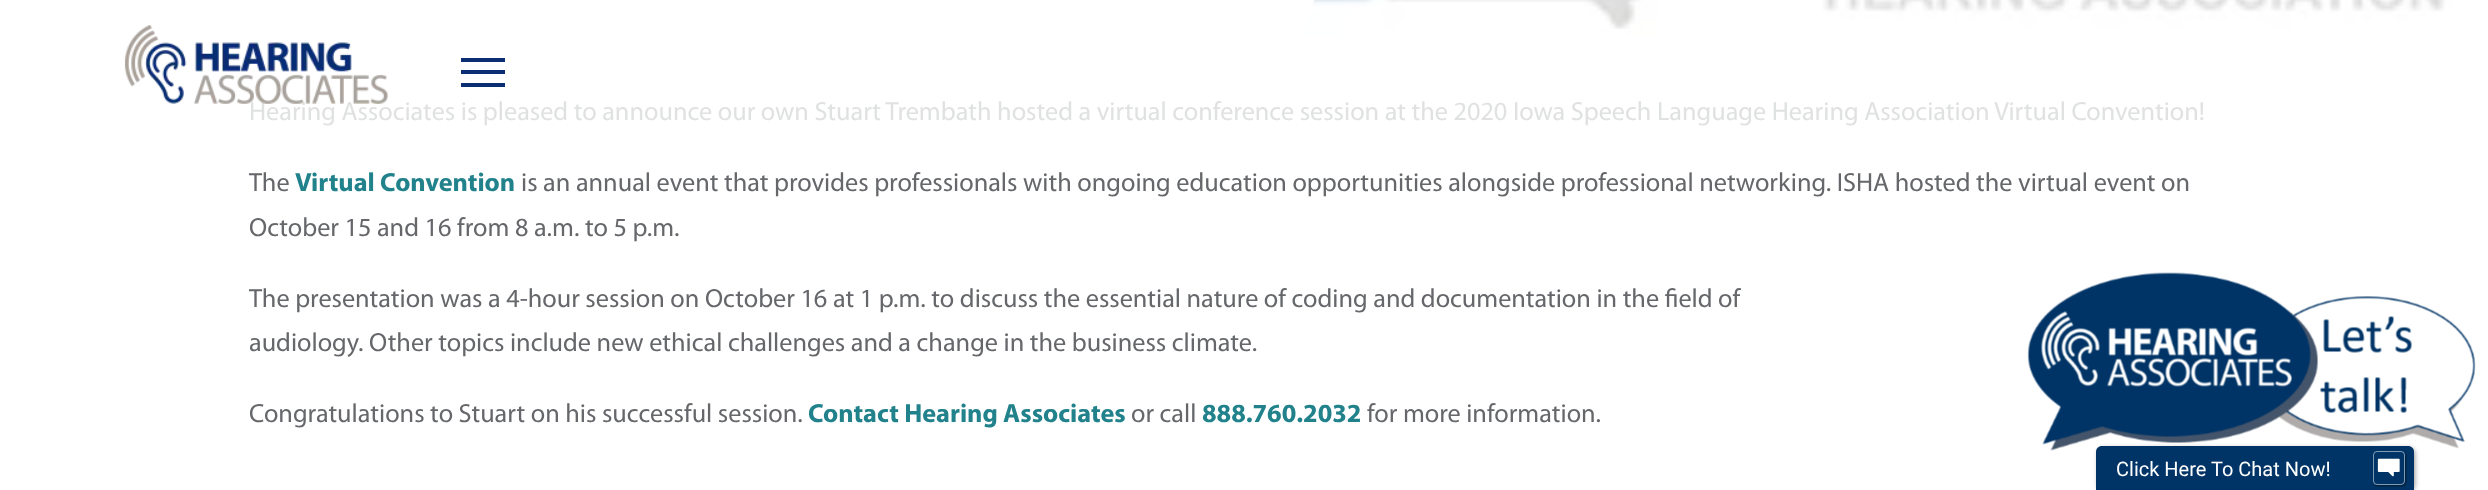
<svg xmlns="http://www.w3.org/2000/svg" width="2488" height="490" viewBox="0 0 2488 490">
  <defs>
    <clipPath id="clip1"><path d="M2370 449H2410V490H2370ZM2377 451H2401C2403 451 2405 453 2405 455V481C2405 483 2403 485 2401 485H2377C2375 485 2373 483 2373 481V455C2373 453 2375 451 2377 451Z" clip-rule="evenodd"/></clipPath>
  </defs>
  <rect width="100%" height="100%" fill="#fff"/>
  <path d="M461 58h44v4H461z" fill="#0a2d74"/>
  <path d="M461 70h44v4H461z" fill="#0a2d74"/>
  <path d="M461 83h44v4H461z" fill="#0a2d74"/>
  <image x="1304" y="0" width="1148" height="36" href="img/2.png"/>
  <path d="M55-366H1412L1303 41H-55Z" fill="#fff"/>
  <rect x="2098" y="448" width="317" height="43" rx="6" fill="#00000066" filter="blur(2.5px)"/>
  <path d="M2102 446H2408C2411.5 446 2414 448.5 2414 452V490H2096V452C2096 448.5 2098.5 446 2102 446Z" fill="#003466"/>
  <g clip-path="url(#clip1)">
    <rect x="2374" y="453" width="32" height="33" rx="4" fill="#00000080" filter="blur(1px)"/>
  </g>
  <image x="2027" y="272" width="449" height="179" href="img/3.png"/>
  <rect x="2373.5" y="451.5" width="31" height="33" rx="3.5" fill="none" stroke="#ffffff80"/>
  <image x="2377" y="458" width="23" height="19" href="img/4.png"/>
  <text x="249" y="120" font-family="Myriad" font-size="26.25" fill="#e0e1e1">Hearing Associates is pleased to announce our own Stuart Trembath hosted a virtual conference session at the 2020 Iowa Speech Language Hearing Association Virtual Convention!</text>
  <image x="124" y="25" width="264" height="79" href="img/1.png"/>
  <text x="249" y="191" font-family="Myriad" font-size="26.25" fill="#65676a">The</text>
  <text x="295" y="191" font-family="Myriad" font-size="26.25" font-weight="bold" fill="#21828c">Virtual Convention</text>
  <g font-family="Myriad" font-size="26.25" fill="#65676a">
    <text x="521" y="191">is an annual event that provides professionals with ongoing education opportunities alongside professional networking. ISHA hosted the virtual event on</text>
    <text x="249" y="236">October 15 and 16 from 8 a.m. to 5 p.m.</text>
    <text x="249" y="307">The presentation was a 4-hour session on October 16 at 1 p.m. to discuss the essential nature of coding and documentation in the field of</text>
    <text x="249" y="351">audiology. Other topics include new ethical challenges and a change in the business climate.</text>
    <text x="249" y="422">Congratulations to Stuart on his successful session.</text>
  </g>
  <text x="808" y="422" font-family="Myriad" font-size="26.25" font-weight="bold" fill="#21828c">Contact Hearing Associates</text>
  <text x="1131" y="422" font-family="Myriad" font-size="26.25" fill="#65676a">or call</text>
  <text x="1202" y="422" font-family="Myriad" font-size="26.25" font-weight="bold" fill="#21828c">888.760.2032</text>
  <text x="1367" y="422" font-family="Myriad" font-size="26.25" fill="#65676a">for more information.</text>
  <text x="2116" y="476" font-family="Roboto" font-size="20" fill="#fff">Click Here To Chat Now!</text>
</svg>
